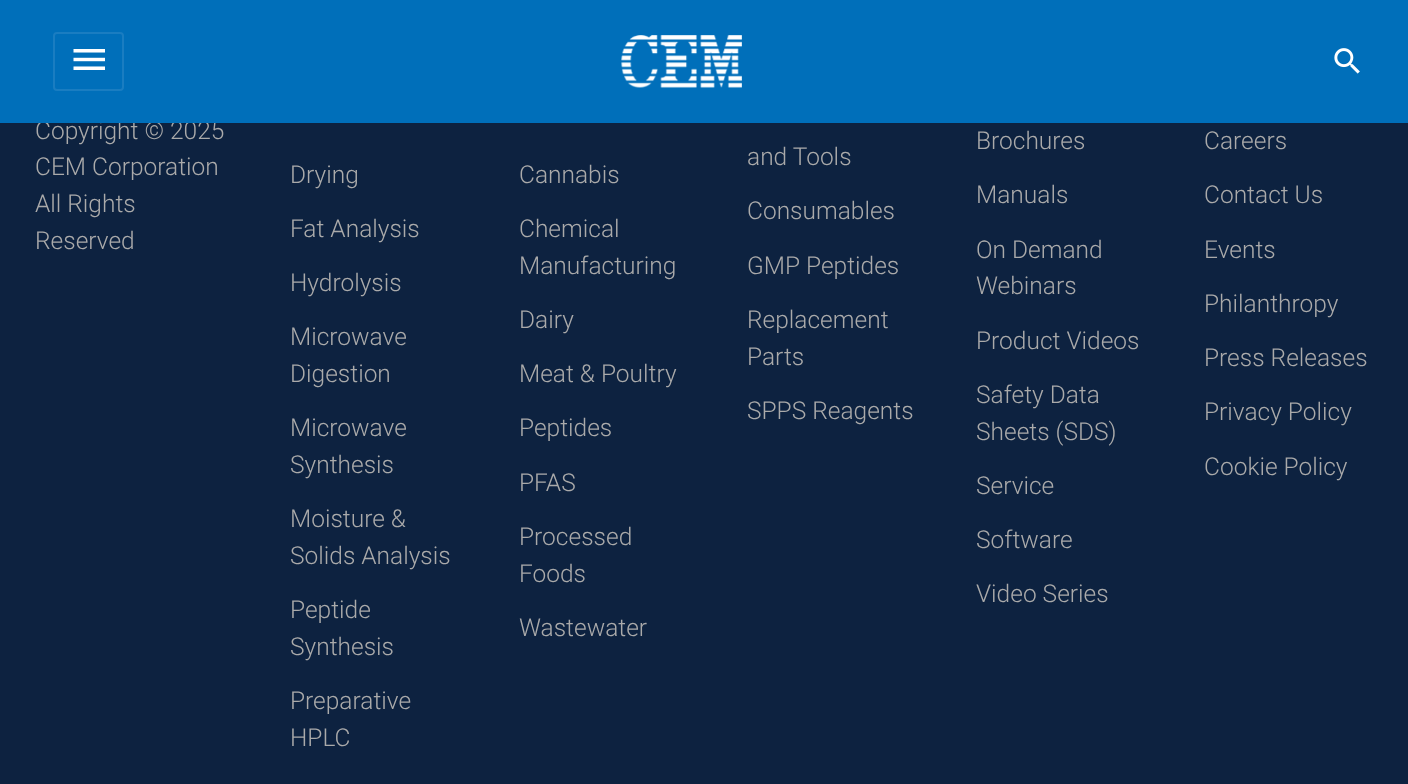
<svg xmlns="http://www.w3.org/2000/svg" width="1408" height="784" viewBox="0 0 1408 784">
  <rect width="100%" height="100%" fill="#0d2240"/>
  <text x="35" y="139" font-family="Roboto" font-size="24.5" font-weight="300" fill="#aaa">Copyright © 2025</text>
  <path d="M0 0h1408v123H0z" fill="#006fba"/>
  <image x="621" y="35" width="121" height="53" href="img/2.png"/>
  <image x="1334" y="48" width="26" height="26" href="img/3.png"/>
  <rect x="54" y="33" width="69" height="57" rx="3" fill="none" stroke="#1a7dc1" stroke-width="2"/>
  <image x="73" y="49" width="32" height="21" href="img/1.png"/>
  <g font-family="Roboto" font-size="24.5" font-weight="300" fill="#aaa">
    <text x="35" y="175">CEM Corporation</text>
    <text x="35" y="212">All Rights</text>
    <text x="35" y="249">Reserved</text>
    <text x="290" y="183">Drying</text>
    <text x="290" y="237">Fat Analysis</text>
    <text x="290" y="291">Hydrolysis</text>
    <text x="290" y="345">Microwave</text>
    <text x="290" y="382">Digestion</text>
    <text x="290" y="436">Microwave</text>
    <text x="290" y="473">Synthesis</text>
    <text x="290" y="527">Moisture &amp;</text>
    <text x="290" y="564">Solids Analysis</text>
    <text x="290" y="618">Peptide</text>
    <text x="290" y="655">Synthesis</text>
    <text x="290" y="709">Preparative</text>
    <text x="290" y="746">HPLC</text>
    <text x="519" y="183">Cannabis</text>
    <text x="519" y="237">Chemical</text>
    <text x="519" y="274">Manufacturing</text>
    <text x="519" y="328">Dairy</text>
    <text x="519" y="382">Meat &amp; Poultry</text>
    <text x="519" y="436">Peptides</text>
    <text x="519" y="491">PFAS</text>
    <text x="519" y="545">Processed</text>
    <text x="519" y="582">Foods</text>
    <text x="519" y="636">Wastewater</text>
    <text x="747" y="165">and Tools</text>
    <text x="747" y="219">Consumables</text>
    <text x="747" y="274">GMP Peptides</text>
    <text x="747" y="328">Replacement</text>
    <text x="747" y="365">Parts</text>
    <text x="747" y="419">SPPS Reagents</text>
    <text x="976" y="149">Brochures</text>
    <text x="976" y="203">Manuals</text>
    <text x="976" y="258">On Demand</text>
    <text x="976" y="294">Webinars</text>
    <text x="976" y="349">Product Videos</text>
    <text x="976" y="403">Safety Data</text>
    <text x="976" y="440">Sheets (SDS)</text>
    <text x="976" y="494">Service</text>
    <text x="976" y="548">Software</text>
    <text x="976" y="602">Video Series</text>
    <text x="1204" y="149">Careers</text>
    <text x="1204" y="203">Contact Us</text>
    <text x="1204" y="258">Events</text>
    <text x="1204" y="312">Philanthropy</text>
    <text x="1204" y="366">Press Releases</text>
    <text x="1204" y="420">Privacy Policy</text>
    <text x="1204" y="475">Cookie Policy</text>
  </g>
</svg>
